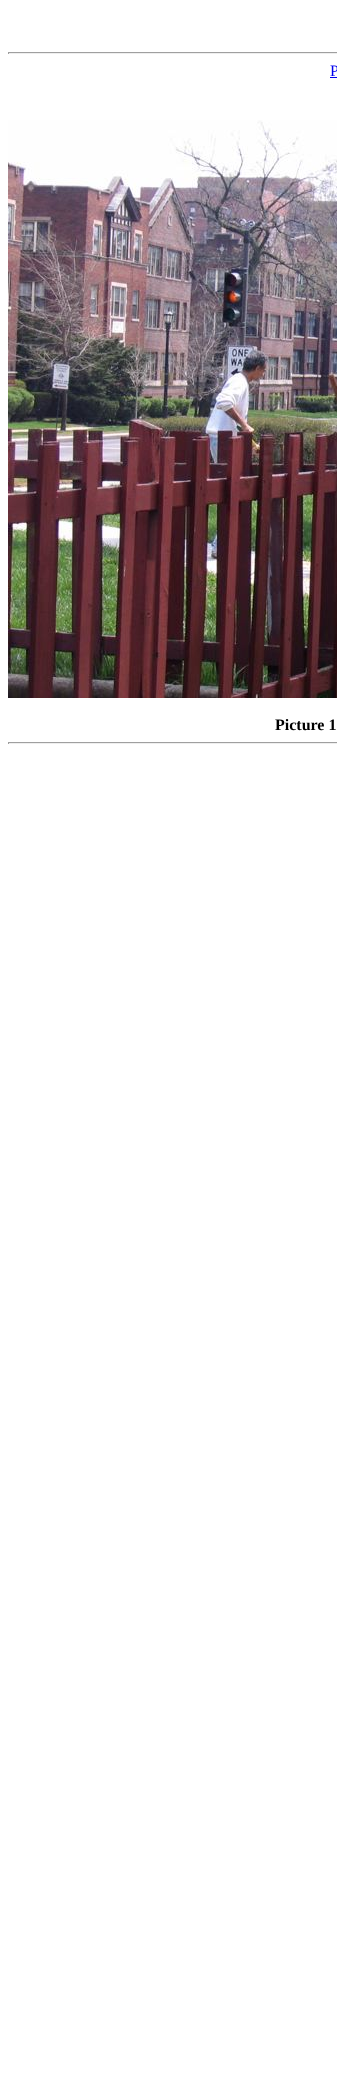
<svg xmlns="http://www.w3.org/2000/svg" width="337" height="2099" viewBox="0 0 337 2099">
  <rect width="100%" height="100%" fill="#fff"/>
  <path d="M8 52h329v1H8z" fill="#9f9f9f"/>
  <path d="M8 53h329v1H8z" fill="#eee"/>
  <path d="M8 52h1v2H8z" fill="#9f9f9f"/>
  <path d="M330 77h7v1H330z" fill="#00e"/>
  <image x="8" y="120" width="329" height="578" href="img/1.png"/>
  <path d="M8 742h329v1H8z" fill="#9f9f9f"/>
  <path d="M8 743h329v1H8z" fill="#eee"/>
  <path d="M8 742h1v2H8z" fill="#9f9f9f"/>
  <text x="330" y="76" font-family="Liberation Serif" font-size="16" fill="#00e">P</text>
  <text x="275" y="730" font-family="Liberation Serif" font-size="16" font-weight="bold" fill="#000">Picture 1</text>
</svg>
